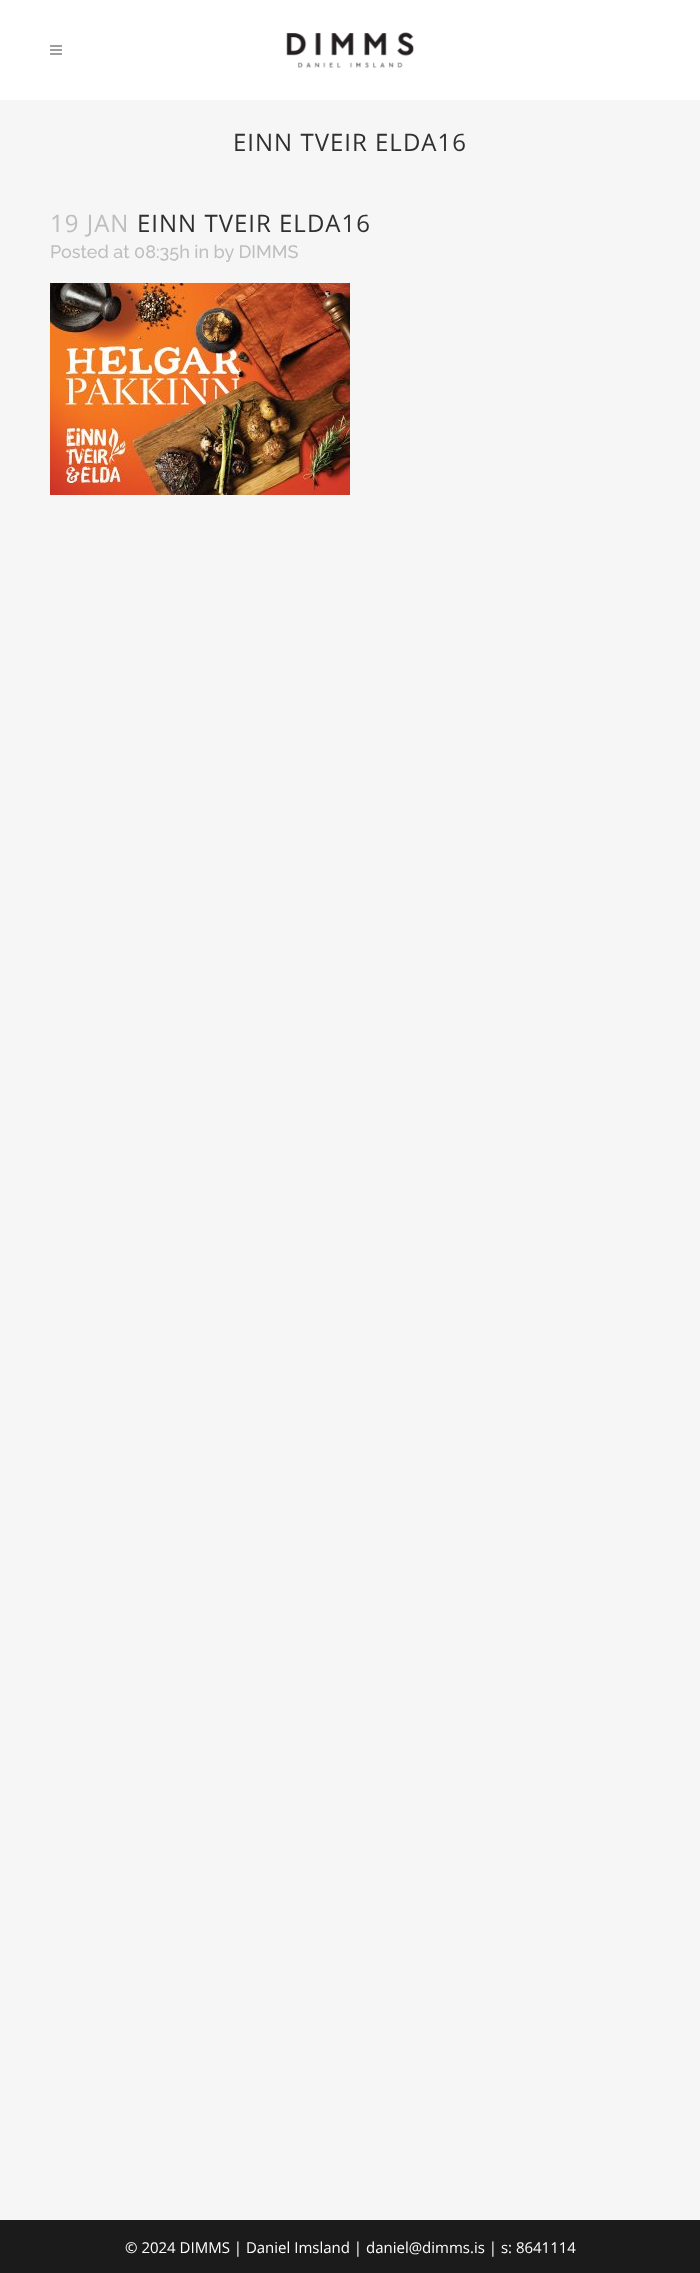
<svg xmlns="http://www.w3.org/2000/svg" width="700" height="2273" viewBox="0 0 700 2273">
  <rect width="100%" height="100%" fill="#f6f6f6"/>
  <path d="M0 0h700v100H0z" fill="#fff"/>
  <image x="50" y="45" width="12" height="10" href="img/1.png"/>
  <image x="286" y="32" width="128" height="36" href="img/2.png"/>
  <image x="50" y="283" width="300" height="212" href="img/3.png"/>
  <path d="M0 2220h700v53H0z" fill="#1b1b1b"/>
  <text x="233" y="151" font-family="Open Sans" font-size="24" letter-spacing="1" fill="#303030">EINN TVEIR ELDA16</text>
  <text x="50" y="232" font-family="Open Sans" font-size="24" letter-spacing="1" fill="#bebebe">19 JAN</text>
  <text x="137" y="232" font-family="Open Sans" font-size="24" letter-spacing="1" fill="#303030">EINN TVEIR ELDA16</text>
  <text x="50" y="258" font-family="Raleway" font-size="18" font-weight="500" fill="#bebebe">Posted at 08:35h in by DIMMS</text>
  <text x="125" y="2253" font-family="Open Sans" font-size="15" fill="#fff">© 2024 DIMMS | Daniel Imsland | daniel@dimms.is | s: 8641114</text>
</svg>
